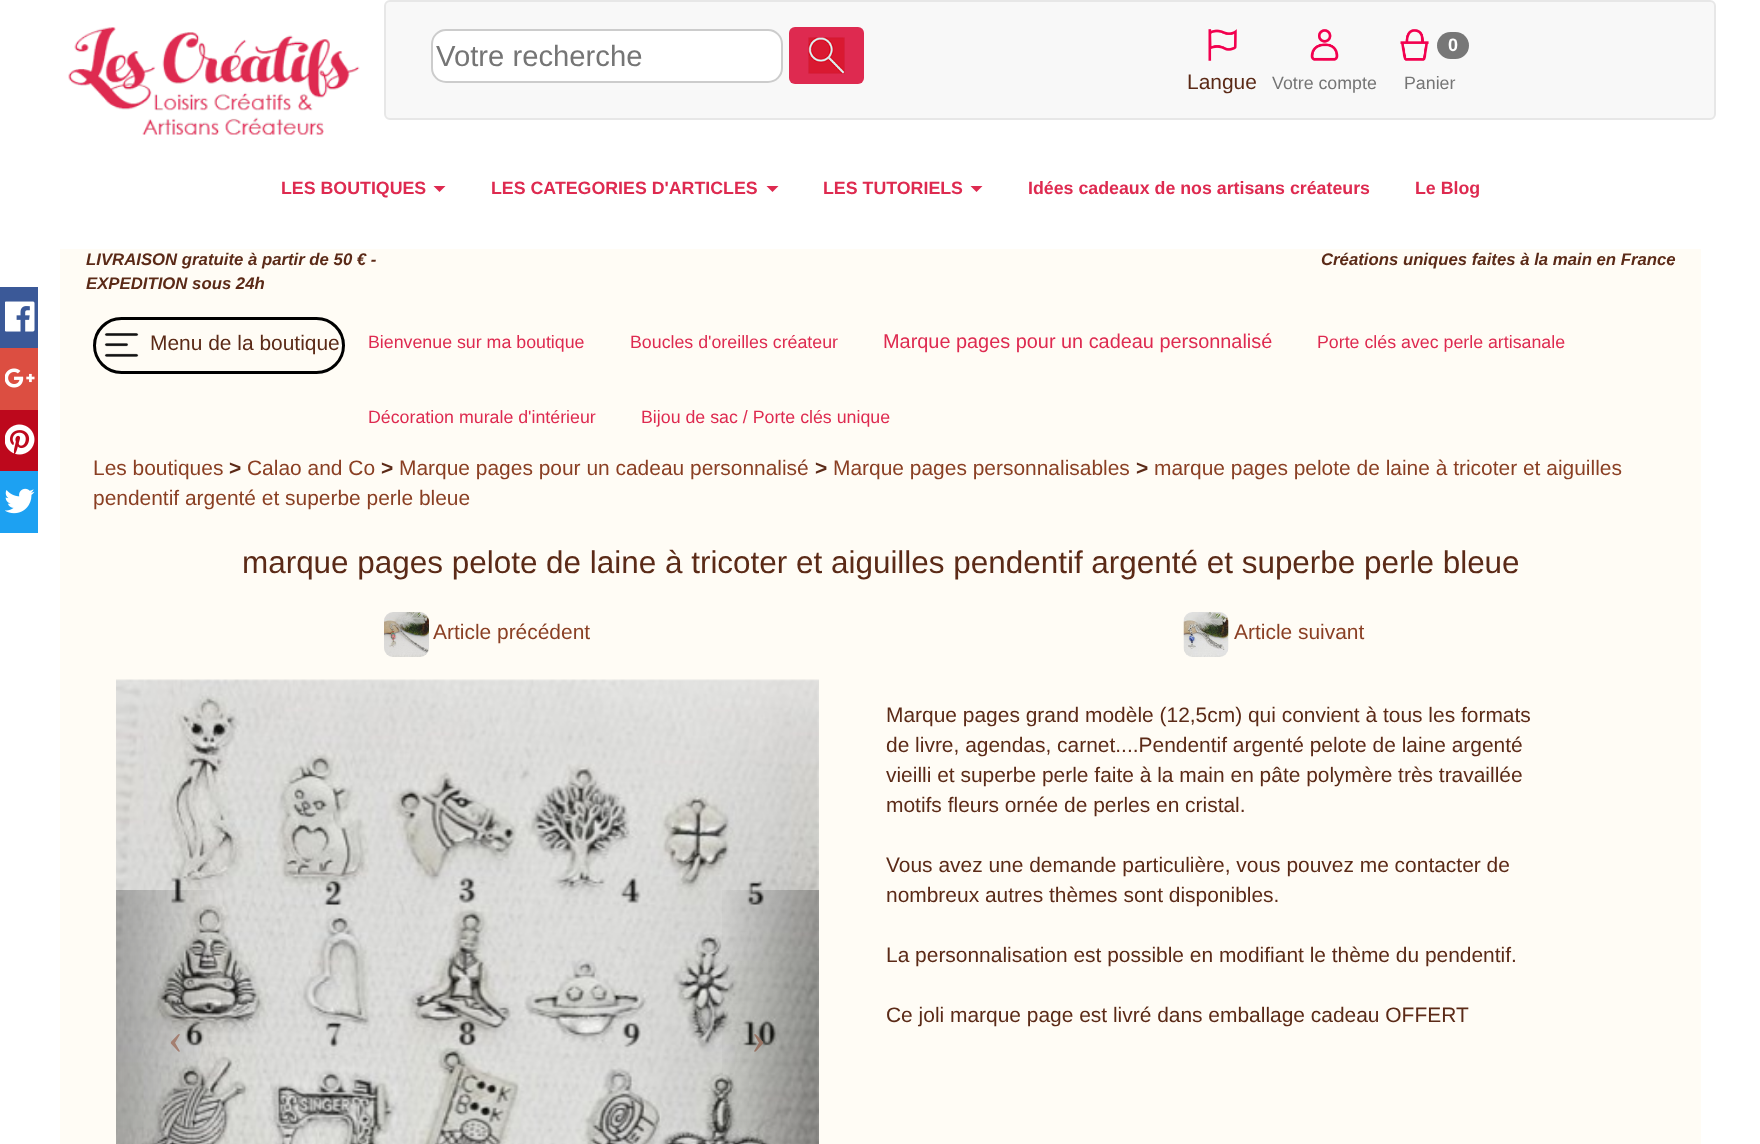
<svg xmlns="http://www.w3.org/2000/svg" width="1760" height="1144" viewBox="0 0 1760 1144">
  <defs>
    <linearGradient id="g1" gradientUnits="userSpaceOnUse" x1="713" y1="1031" x2="819" y2="1031"><stop offset="0" stop-color="#000" stop-opacity="0"/><stop offset="1" stop-color="#000" stop-opacity="0.25"/></linearGradient>
  </defs>
  <rect width="100%" height="100%" fill="#fff"/>
  <path d="M0 287h38v61H0z" fill="#3b5998"/>
  <image x="5" y="301" width="30" height="31" href="img/1.png"/>
  <path d="M0 348h38v62H0z" fill="#dc4e41"/>
  <image x="5" y="368" width="30" height="20" href="img/2.png"/>
  <path d="M0 410h38v61H0z" fill="#bd081c"/>
  <image x="5" y="424" width="30" height="31" href="img/3.png"/>
  <path d="M0 471h38v62H0z" fill="#1da1f2"/>
  <image x="5" y="488" width="30" height="26" href="img/4.png"/>
  <image x="68" y="27" width="292" height="108" href="img/5.png"/>
  <rect x="385" y="1" width="1330" height="118" rx="5" fill="#f8f8f8" stroke="#e7e7e7" stroke-width="2"/>
  <rect x="432" y="30" width="350" height="52" rx="14" fill="#fff" stroke="#ccc" stroke-width="2"/>
  <rect x="789" y="27" width="75" height="57" rx="6" fill="#de2a50"/>
  <image x="808" y="37" width="37" height="37" href="img/6.png"/>
  <image x="1208" y="29" width="29" height="32" href="img/7.png"/>
  <image x="1310" y="29" width="29" height="32" href="img/8.png"/>
  <image x="1400" y="29" width="29" height="32" href="img/9.png"/>
  <rect x="1437" y="32" width="32" height="27" rx="13.5" fill="#777"/>
  <path d="M433.5 186H445.5L439.5 192Z" fill="#de2a50"/>
  <path d="M766.5 186H778.5L772.5 192Z" fill="#de2a50"/>
  <path d="M970.5 186H982.5L976.5 192Z" fill="#de2a50"/>
  <path d="M60 249h1641v895H60z" fill="#fffcf5"/>
  <rect x="94.5" y="318.5" width="249" height="54" rx="27" fill="none" stroke="#000" stroke-width="3"/>
  <image x="104" y="333" width="35" height="24" href="img/10.png"/>
  <image x="384" y="612" width="45" height="45" href="img/11.png"/>
  <image x="1183" y="612" width="46" height="45" href="img/12.png"/>
  <image x="116" y="679" width="703" height="465" href="img/13.png"/>
  <path d="M722 890h97v254H722z" fill="url(#g1)"/>
  <text x="436" y="66" font-family="Liberation Sans" font-size="29.25" fill="#757575">Votre recherche</text>
  <text x="1187" y="89" font-family="Liberation Sans" font-size="20.95" fill="#5b2a17">Langue</text>
  <text x="1272" y="89" font-family="Liberation Sans" font-size="17.8" fill="#757575">Votre compte</text>
  <text x="1448" y="51" font-family="Liberation Sans" font-size="18" font-weight="bold" fill="#fff">0</text>
  <text x="1404" y="89" font-family="Liberation Sans" font-size="17.8" fill="#757575">Panier</text>
  <g font-family="Liberation Sans" font-size="17.8" font-weight="bold" fill="#de2a50">
    <text x="281" y="194">LES BOUTIQUES</text>
    <text x="491" y="194">LES CATEGORIES D'ARTICLES</text>
    <text x="823" y="194">LES TUTORIELS</text>
    <text x="1028" y="194">Idées cadeaux de nos artisans créateurs</text>
    <text x="1415" y="194">Le Blog</text>
  </g>
  <g font-family="Liberation Sans" font-size="16.75" font-weight="bold" font-style="italic" fill="#5b2a17">
    <text x="86" y="265">LIVRAISON gratuite à partir de 50 € -</text>
    <text x="86" y="289">EXPEDITION sous 24h</text>
    <text x="1321" y="265">Créations uniques faites à la main en France</text>
  </g>
  <text x="150" y="350" font-family="Liberation Sans" font-size="20.95" fill="#5b2a17">Menu de la boutique</text>
  <g font-family="Liberation Sans" font-size="17.8" fill="#de2a50">
    <text x="368" y="348">Bienvenue sur ma boutique</text>
    <text x="630" y="348">Boucles d'oreilles créateur</text>
  </g>
  <text x="883" y="348" font-family="Liberation Sans" font-size="19.9" fill="#de2a50">Marque pages pour un cadeau personnalisé</text>
  <g font-family="Liberation Sans" font-size="17.8" fill="#de2a50">
    <text x="1317" y="348">Porte clés avec perle artisanale</text>
    <text x="368" y="423">Décoration murale d'intérieur</text>
    <text x="641" y="423">Bijou de sac / Porte clés unique</text>
  </g>
  <text x="93" y="475" font-family="Liberation Sans" font-size="20.95" fill="#8a3f23">Les boutiques</text>
  <text x="229" y="475" font-family="Liberation Sans" font-size="20.95" font-weight="bold" fill="#5b2a17">&gt;</text>
  <text x="247" y="475" font-family="Liberation Sans" font-size="20.95" fill="#8a3f23">Calao and Co</text>
  <text x="381" y="475" font-family="Liberation Sans" font-size="20.95" font-weight="bold" fill="#5b2a17">&gt;</text>
  <text x="399" y="475" font-family="Liberation Sans" font-size="20.95" fill="#8a3f23">Marque pages pour un cadeau personnalisé</text>
  <text x="815" y="475" font-family="Liberation Sans" font-size="20.95" font-weight="bold" fill="#5b2a17">&gt;</text>
  <text x="833" y="475" font-family="Liberation Sans" font-size="20.95" fill="#8a3f23">Marque pages personnalisables</text>
  <text x="1136" y="475" font-family="Liberation Sans" font-size="20.95" font-weight="bold" fill="#5b2a17">&gt;</text>
  <g font-family="Liberation Sans" font-size="20.95" fill="#8a3f23">
    <text x="1154" y="475">marque pages pelote de laine à tricoter et aiguilles</text>
    <text x="93" y="505">pendentif argenté et superbe perle bleue</text>
  </g>
  <text x="242" y="573" font-family="Liberation Sans" font-size="31.45" fill="#5b2a17">marque pages pelote de laine à tricoter et aiguilles pendentif argenté et superbe perle bleue</text>
  <g font-family="Liberation Sans" font-size="20.95" fill="#8a3f23">
    <text x="433" y="639">Article précédent</text>
    <text x="1234" y="639">Article suivant</text>
  </g>
  <g font-family="Liberation Sans" font-size="20.95" fill="#5b2a17">
    <text x="886" y="722">Marque pages grand modèle (12,5cm) qui convient à tous les formats</text>
    <text x="886" y="752">de livre, agendas, carnet....Pendentif argenté pelote de laine argenté</text>
    <text x="886" y="782">vieilli et superbe perle faite à la main en pâte polymère très travaillée</text>
    <text x="886" y="812">motifs fleurs ornée de perles en cristal.</text>
    <text x="886" y="872">Vous avez une demande particulière, vous pouvez me contacter de</text>
    <text x="886" y="902">nombreux autres thèmes sont disponibles.</text>
    <text x="886" y="962">La personnalisation est possible en modifiant le thème du pendentif.</text>
    <text x="886" y="1022">Ce joli marque page est livré dans emballage cadeau OFFERT</text>
  </g>
  <text x="168" y="1053" font-family="Liberation Serif" font-size="45" fill="#a47f70">‹</text>
  <text x="751" y="1053" font-family="Liberation Serif" font-size="45" fill="#987363">›</text>
</svg>
